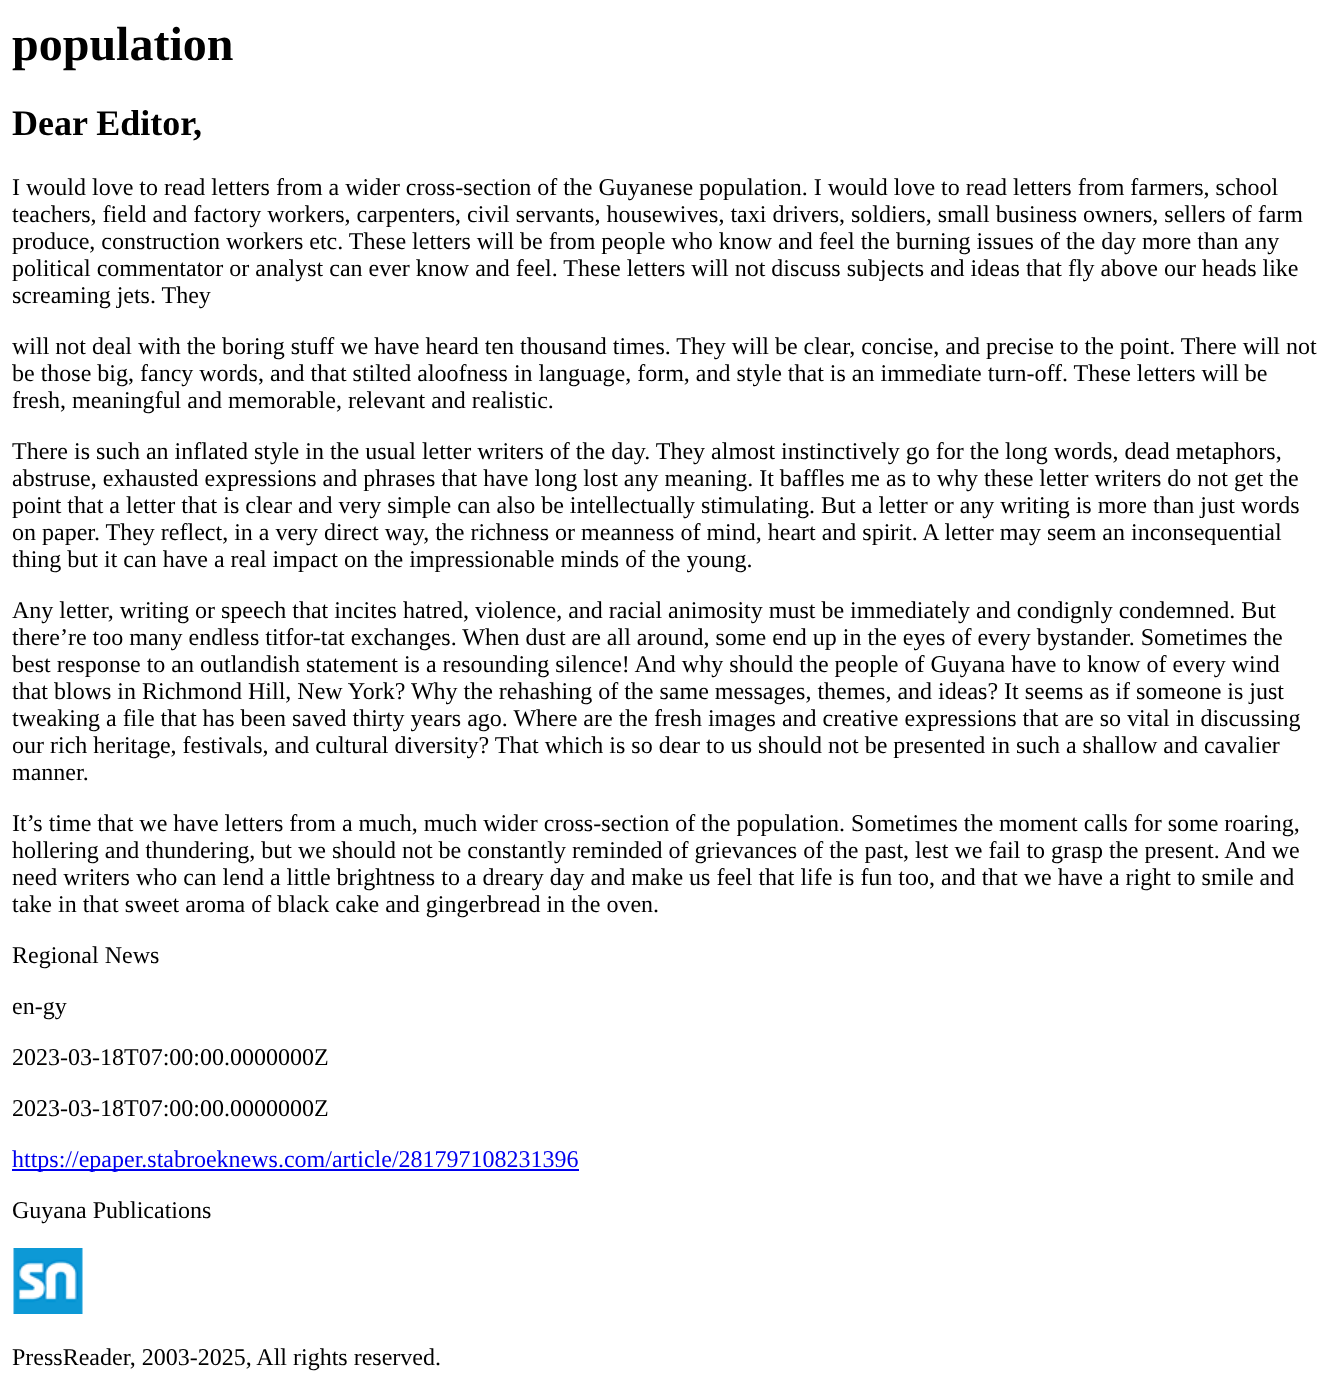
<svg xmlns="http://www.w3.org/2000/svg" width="1328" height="1382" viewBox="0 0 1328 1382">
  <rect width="100%" height="100%" fill="#fff"/>
  <path d="M12 1169h567v2H12z" fill="#00e"/>
  <image x="13" y="1248" width="70" height="66" href="img/1.png"/>
  <text x="12" y="60" font-family="Liberation Serif" font-size="48" font-weight="bold" fill="#000">population</text>
  <text x="12" y="135" font-family="Liberation Serif" font-size="36" font-weight="bold" fill="#000">Dear Editor,</text>
  <g font-family="Liberation Serif" font-size="24" fill="#000">
    <text x="12" y="195">I would love to read letters from a wider cross-section of the Guyanese population. I would love to read letters from farmers, school</text>
    <text x="12" y="222">teachers, field and factory workers, carpenters, civil servants, housewives, taxi drivers, soldiers, small business owners, sellers of farm</text>
    <text x="12" y="249">produce, construction workers etc. These letters will be from people who know and feel the burning issues of the day more than any</text>
    <text x="12" y="276">political commentator or analyst can ever know and feel. These letters will not discuss subjects and ideas that fly above our heads like</text>
    <text x="12" y="303">screaming jets. They</text>
    <text x="12" y="354">will not deal with the boring stuff we have heard ten thousand times. They will be clear, concise, and precise to the point. There will not</text>
    <text x="12" y="381">be those big, fancy words, and that stilted aloofness in language, form, and style that is an immediate turn-off. These letters will be</text>
    <text x="12" y="408">fresh, meaningful and memorable, relevant and realistic.</text>
    <text x="12" y="459">There is such an inflated style in the usual letter writers of the day. They almost instinctively go for the long words, dead metaphors,</text>
    <text x="12" y="486">abstruse, exhausted expressions and phrases that have long lost any meaning. It baffles me as to why these letter writers do not get the</text>
    <text x="12" y="513">point that a letter that is clear and very simple can also be intellectually stimulating. But a letter or any writing is more than just words</text>
    <text x="12" y="540">on paper. They reflect, in a very direct way, the richness or meanness of mind, heart and spirit. A letter may seem an inconsequential</text>
    <text x="12" y="567">thing but it can have a real impact on the impressionable minds of the young.</text>
    <text x="12" y="618">Any letter, writing or speech that incites hatred, violence, and racial animosity must be immediately and condignly condemned. But</text>
    <text x="12" y="645">there’re too many endless titfor-tat exchanges. When dust are all around, some end up in the eyes of every bystander. Sometimes the</text>
    <text x="12" y="672">best response to an outlandish statement is a resounding silence! And why should the people of Guyana have to know of every wind</text>
    <text x="12" y="699">that blows in Richmond Hill, New York? Why the rehashing of the same messages, themes, and ideas? It seems as if someone is just</text>
    <text x="12" y="726">tweaking a file that has been saved thirty years ago. Where are the fresh images and creative expressions that are so vital in discussing</text>
    <text x="12" y="753">our rich heritage, festivals, and cultural diversity? That which is so dear to us should not be presented in such a shallow and cavalier</text>
    <text x="12" y="780">manner.</text>
    <text x="12" y="831">It’s time that we have letters from a much, much wider cross-section of the population. Sometimes the moment calls for some roaring,</text>
    <text x="12" y="858">hollering and thundering, but we should not be constantly reminded of grievances of the past, lest we fail to grasp the present. And we</text>
    <text x="12" y="885">need writers who can lend a little brightness to a dreary day and make us feel that life is fun too, and that we have a right to smile and</text>
    <text x="12" y="912">take in that sweet aroma of black cake and gingerbread in the oven.</text>
    <text x="12" y="963">Regional News</text>
    <text x="12" y="1014">en-gy</text>
    <text x="12" y="1065">2023-03-18T07:00:00.0000000Z</text>
    <text x="12" y="1116">2023-03-18T07:00:00.0000000Z</text>
  </g>
  <text x="12" y="1167" font-family="Liberation Serif" font-size="24" fill="#00e">https://epaper.stabroeknews.com/article/281797108231396</text>
  <g font-family="Liberation Serif" font-size="24" fill="#000">
    <text x="12" y="1218">Guyana Publications</text>
    <text x="12" y="1365">PressReader, 2003-2025, All rights reserved.</text>
  </g>
</svg>
